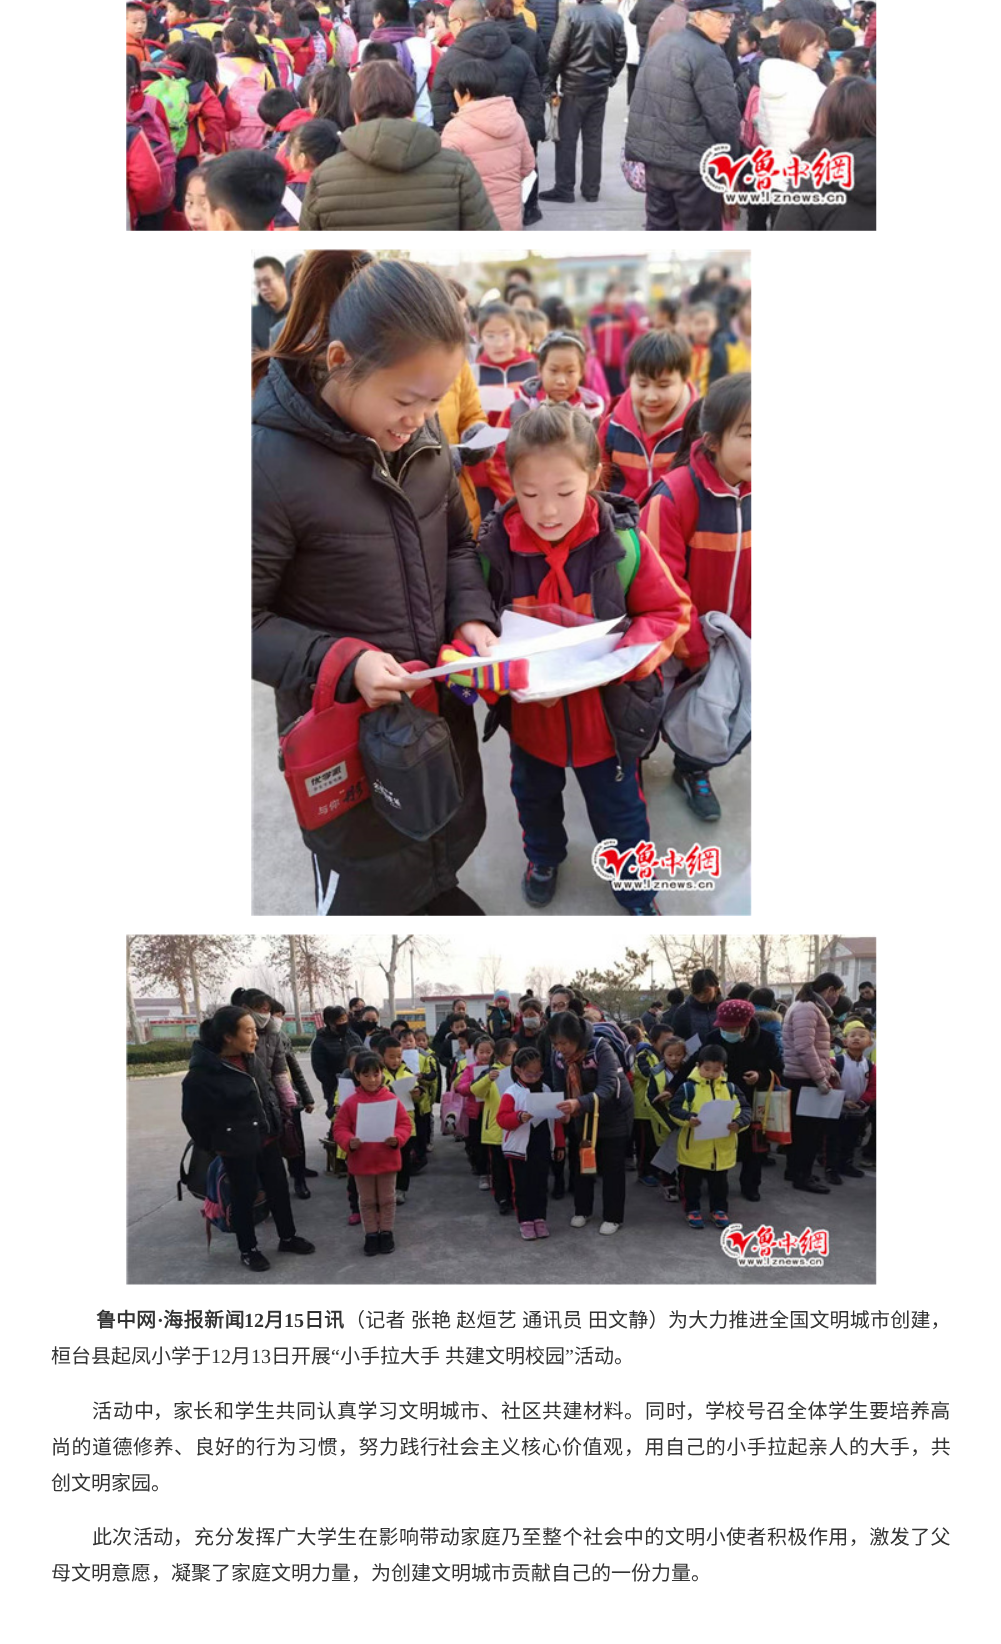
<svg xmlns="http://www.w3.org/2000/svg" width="1001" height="1644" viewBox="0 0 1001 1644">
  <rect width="100%" height="100%" fill="#fff"/>
  <image x="126" y="0" width="751" height="231" href="img/1.png"/>
  <image x="251" y="249" width="501" height="667" href="img/2.png"/>
  <image x="126" y="934" width="751" height="351" href="img/3.png"/>
  <text x="96" y="1327" font-family="Noto Sans CJK SC" font-size="20" font-weight="bold" fill="#333">鲁中网</text>
  <text x="157" y="1327" font-family="Liberation Serif" font-size="20" font-weight="bold" fill="#333">·</text>
  <text x="163" y="1327" font-family="Noto Sans CJK SC" font-size="20" font-weight="bold" letter-spacing="0.5" fill="#333">海报新闻</text>
  <text x="244" y="1327" font-family="Liberation Serif" font-size="20" font-weight="bold" fill="#333">12</text>
  <text x="264" y="1327" font-family="Noto Sans CJK SC" font-size="20" font-weight="bold" fill="#333">月</text>
  <text x="284" y="1327" font-family="Liberation Serif" font-size="20" font-weight="bold" fill="#333">15</text>
  <text x="304" y="1327" font-family="Noto Sans CJK SC" font-size="20" font-weight="bold" fill="#333">日讯</text>
  <g font-family="Noto Sans CJK SC" font-size="20" letter-spacing="0.2" fill="#333">
    <text x="345" y="1327" word-spacing="0.5">（记者 张艳 赵烜艺 通讯员 田文静）</text>
    <text x="668" y="1327">为大力推进全国文明城市创建，</text>
  </g>
  <text x="51" y="1363" font-family="Noto Sans CJK SC" font-size="20" fill="#333">桓台县起凤小学于</text>
  <text x="211" y="1363" font-family="Liberation Serif" font-size="20" fill="#333">12</text>
  <text x="231" y="1363" font-family="Noto Sans CJK SC" font-size="20" fill="#333">月</text>
  <text x="251" y="1363" font-family="Liberation Serif" font-size="20" fill="#333">13</text>
  <text x="271" y="1363" font-family="Noto Sans CJK SC" font-size="20" fill="#333">日开展</text>
  <text x="331" y="1363" font-family="Liberation Serif" font-size="20" fill="#333">“</text>
  <g font-family="Noto Sans CJK SC" font-size="20" fill="#333">
    <text x="340" y="1363">小手拉大手</text>
    <text x="445" y="1363">共建文明校园</text>
  </g>
  <text x="565" y="1363" font-family="Liberation Serif" font-size="20" fill="#333">”</text>
  <text x="574" y="1363" font-family="Noto Sans CJK SC" font-size="20" fill="#333">活动。</text>
  <text x="92" y="1418" font-family="Noto Sans CJK SC" font-size="20" letter-spacing="1" fill="#333">活动中</text>
  <g font-family="Noto Sans CJK SC" font-size="20" fill="#333">
    <text x="153" y="1418">，</text>
    <text x="173" y="1418">家长</text>
  </g>
  <text x="214" y="1418" font-family="Noto Sans CJK SC" font-size="20" letter-spacing="0.5" fill="#333">和学生共同认真学习文明城市、社区共建材料</text>
  <text x="624" y="1418" font-family="Noto Sans CJK SC" font-size="20" letter-spacing="1" fill="#333">。同时</text>
  <g font-family="Noto Sans CJK SC" font-size="20" fill="#333">
    <text x="685" y="1418">，</text>
    <text x="705" y="1418">学校</text>
    <text x="746" y="1418">号召</text>
  </g>
  <text x="787" y="1418" font-family="Noto Sans CJK SC" font-size="20" letter-spacing="0.5" fill="#333">全体学生</text>
  <text x="869" y="1418" font-family="Noto Sans CJK SC" font-size="20" letter-spacing="0.45" fill="#333">要培养高</text>
  <g font-family="Noto Sans CJK SC" font-size="20" letter-spacing="0.5" fill="#333">
    <text x="51" y="1454">尚的道德修养、良好的行为习惯，努力践行</text>
    <text x="439" y="1454">社会主义核心价值观</text>
  </g>
  <text x="624" y="1454" font-family="Noto Sans CJK SC" font-size="20" letter-spacing="0.45" fill="#333">，用自己的小手拉起亲人的大手，共</text>
  <g font-family="Noto Sans CJK SC" font-size="20" fill="#333">
    <text x="51" y="1490">创文明家园。</text>
    <text x="92" y="1544">此次</text>
    <text x="133" y="1544">活动</text>
    <text x="173" y="1544">，</text>
  </g>
  <text x="194" y="1544" font-family="Noto Sans CJK SC" font-size="20" letter-spacing="0.5" fill="#333">充分发挥广大</text>
  <text x="317" y="1544" font-family="Noto Sans CJK SC" font-size="20" fill="#333">学生</text>
  <text x="358" y="1544" font-family="Noto Sans CJK SC" font-size="20" letter-spacing="0.45" fill="#333">在影响带动家庭乃至整个社会中的文明小使者积极作用，激发了父</text>
  <text x="51" y="1580" font-family="Noto Sans CJK SC" font-size="20" fill="#333">母文明意愿，凝聚了家庭文明力量，为创建文明城市贡献自己的一份力量。</text>
</svg>
